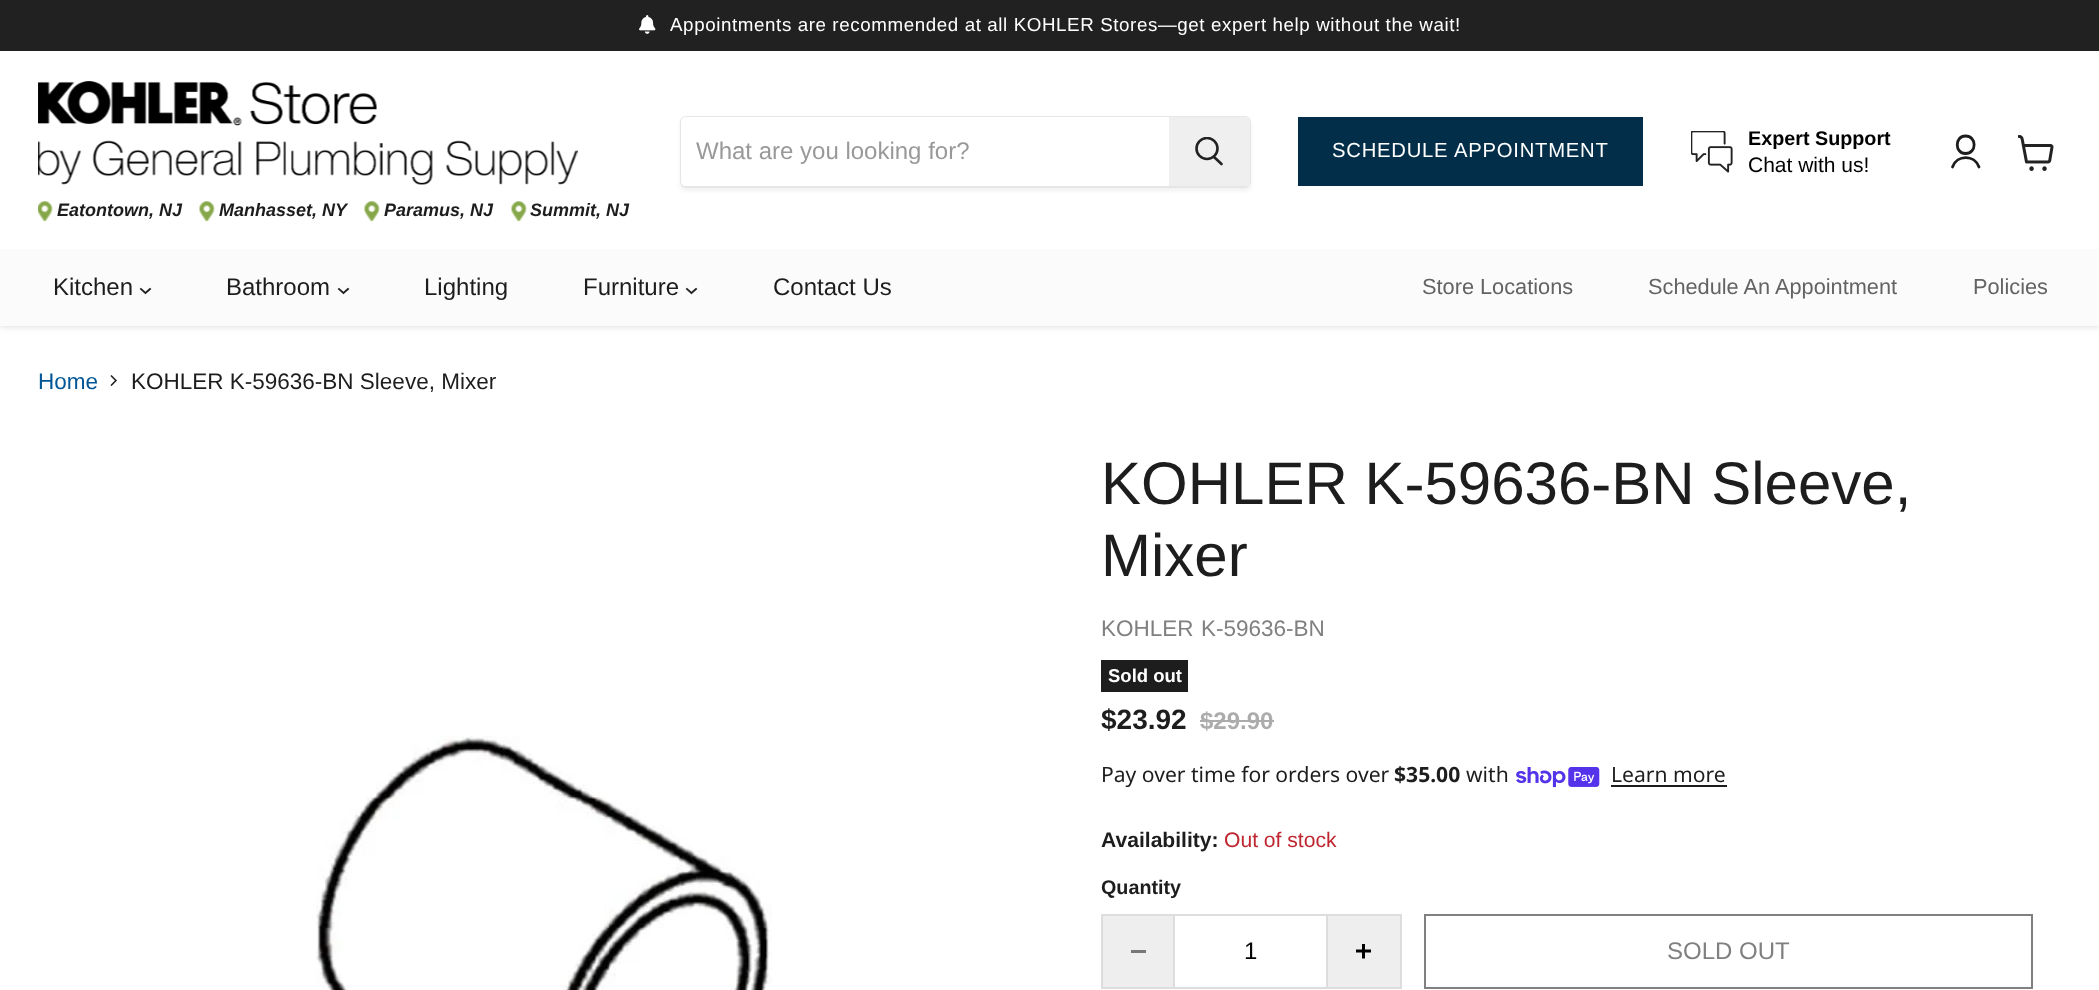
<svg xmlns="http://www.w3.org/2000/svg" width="2099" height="990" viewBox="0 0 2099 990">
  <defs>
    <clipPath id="clip1"><path d="M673 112H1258V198H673ZM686 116H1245C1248.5 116 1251 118.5 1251 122V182C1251 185.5 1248.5 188 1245 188H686C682.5 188 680 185.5 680 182V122C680 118.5 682.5 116 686 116Z" clip-rule="evenodd"/></clipPath>
    <clipPath id="clip2"><path d="M1194 137h30v31H1194z"/></clipPath>
  </defs>
  <rect width="100%" height="100%" fill="#fff"/>
  <path d="M0 53h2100v274H0z" fill="#80808040" filter="blur(3px)"/>
  <path d="M0 0h2099v51H0z" fill="#212121"/>
  <image x="639" y="15" width="17" height="19" href="img/1.png"/>
  <path d="M0 51h2099v198H0z" fill="#fff"/>
  <g clip-path="url(#clip1)">
    <rect x="680" y="119" width="571" height="72" rx="6" fill="#8080801c" filter="blur(2px)"/>
  </g>
  <rect x="681" y="117" width="569" height="70" rx="5" fill="none" stroke="#80808033" stroke-width="2"/>
  <path d="M686 117H1169V186H686C683 186 681 184 681 181V122C681 119 683 117 686 117Z" fill="#fff"/>
  <path d="M1169 117h81v69H1169z" fill="#efefef"/>
  <path d="M1221.5 164L1214 157" fill="none" stroke="#222" stroke-width="2.6" stroke-linecap="round"/>
  <g clip-path="url(#clip2)">
    <circle cx="1207" cy="148.5" r="10.5" fill="none" stroke="#222" stroke-width="2.6"/>
  </g>
  <path d="M1298 117h345v69H1298z" fill="#022e49"/>
  <image x="1691" y="131" width="42" height="42" href="img/2.png"/>
  <image x="38" y="81" width="540" height="104" href="img/3.png"/>
  <image x="38" y="201" width="15" height="21" href="img/4.png"/>
  <image x="199" y="201" width="16" height="21" href="img/5.png"/>
  <image x="364" y="201" width="16" height="21" href="img/6.png"/>
  <image x="511" y="201" width="16" height="21" href="img/5.png"/>
  <path d="M1965.5 153.5C1977 153.5 1977 136 1965.5 136C1954.5 136 1954.5 153.5 1965.5 153.5ZM1979 167C1974.5 154.5 1957 154.5 1952.5 167" fill="none" stroke="#1d1d1d" stroke-width="2.8" stroke-linecap="round" stroke-linejoin="round"/>
  <image x="2018" y="135" width="36" height="36" href="img/7.png"/>
  <path d="M0 249h2099v77H0z" fill="#fbfbfb"/>
  <path d="M145.5 293L150 289M145.5 293L141 289" fill="none" stroke="#222" stroke-width="1.9" stroke-linecap="square"/>
  <path d="M343.5 293L348 289M343.5 293L339 289" fill="none" stroke="#222" stroke-width="1.9" stroke-linecap="square"/>
  <path d="M691.5 293L696 289M691.5 293L687 289" fill="none" stroke="#222" stroke-width="1.9" stroke-linecap="square"/>
  <image x="110" y="375" width="7" height="11" href="img/8.png"/>
  <image x="316" y="736" width="456" height="254" href="img/9.png"/>
  <path d="M1101 660h87v32H1101z" fill="#1d1d1d"/>
  <path d="M1200 720h74v2H1200z" fill="#acacac"/>
  <image x="1516" y="767" width="84" height="21" href="img/10.png"/>
  <path d="M1611 785h116v2H1611z" fill="#1d1d1d"/>
  <path d="M1103 916h70v71H1103z" fill="#eee"/>
  <path d="M1101 914h72v2H1101z" fill="#ddd"/>
  <path d="M1101 987h72v2H1101z" fill="#ddd"/>
  <path d="M1101 914h2v75H1101z" fill="#ddd"/>
  <path d="M1131 950h15v3H1131z" fill="#777"/>
  <path d="M1174 915h153v73H1174z" fill="none" stroke="#ddd" stroke-width="2"/>
  <path d="M1328 916h72v71H1328z" fill="#eee"/>
  <path d="M1328 914h73v2H1328z" fill="#ddd"/>
  <path d="M1400 914h2v75H1400z" fill="#ddd"/>
  <path d="M1328 987h73v2H1328z" fill="#ddd"/>
  <image x="1356" y="944" width="15" height="15" href="img/11.png"/>
  <path d="M1425 915h607v73H1425z" fill="none" stroke="#808080" stroke-width="2"/>
  <text x="670" y="31" font-family="Liberation Sans" font-size="18.75" letter-spacing="0.6" fill="#fff">Appointments are recommended at all KOHLER Stores—get expert help without the wait!</text>
  <text x="696" y="159" font-family="Liberation Sans" font-size="24" fill="#999">What are you looking for?</text>
  <g font-family="Liberation Sans" font-size="20.25" letter-spacing="0.75" fill="#fff">
    <text x="1332" y="157">SCHEDULE</text>
    <text x="1454" y="157">APPOINTMENT</text>
  </g>
  <text x="1748" y="145" font-family="Liberation Sans" font-size="19.75" font-weight="bold" fill="#000">Expert Support</text>
  <text x="1748" y="172" font-family="Liberation Sans" font-size="21" fill="#000">Chat with us!</text>
  <g font-family="Liberation Sans" font-size="18" font-weight="bold" font-style="italic" fill="#1d1d1d">
    <text x="57" y="216">Eatontown, NJ</text>
    <text x="219" y="216">Manhasset, NY</text>
    <text x="384" y="216">Paramus, NJ</text>
    <text x="530" y="216">Summit, NJ</text>
  </g>
  <g font-family="Liberation Sans" font-size="24" fill="#1d1d1d">
    <text x="53" y="295">Kitchen</text>
    <text x="226" y="295">Bathroom</text>
    <text x="424" y="295">Lighting</text>
    <text x="583" y="295">Furniture</text>
    <text x="773" y="295">Contact Us</text>
  </g>
  <g font-family="Liberation Sans" font-size="21.75" fill="#636363">
    <text x="1422" y="294">Store Locations</text>
    <text x="1648" y="294">Schedule An Appointment</text>
    <text x="1973" y="294">Policies</text>
  </g>
  <text x="38" y="389" font-family="Liberation Sans" font-size="22.5" fill="#005696">Home</text>
  <text x="131" y="389" font-family="Liberation Sans" font-size="22.5" fill="#1d1d1d">KOHLER K-59636-BN Sleeve, Mixer</text>
  <g font-family="Liberation Sans" font-size="60" fill="#1d1d1d">
    <text x="1101" y="504">KOHLER K-59636-BN Sleeve,</text>
    <text x="1101" y="576">Mixer</text>
  </g>
  <g font-family="Liberation Sans" font-size="22.5" fill="#808080">
    <text x="1101" y="636">KOHLER</text>
    <text x="1201" y="636">K-59636-BN</text>
  </g>
  <text x="1108" y="682" font-family="Liberation Sans" font-size="18.5" font-weight="bold" fill="#fff">Sold out</text>
  <text x="1101" y="729" font-family="Liberation Sans" font-size="28" font-weight="bold" fill="#1d1d1d">$23.92</text>
  <text x="1200" y="729" font-family="Liberation Sans" font-size="24" font-weight="bold" fill="#acacac">$29.90</text>
  <text x="1101" y="782" font-family="Noto Sans" font-size="21.1" fill="#1d1d1d">Pay over time for orders over</text>
  <text x="1394" y="782" font-family="Noto Sans" font-size="21.1" font-weight="bold" fill="#1d1d1d">$35.00</text>
  <g font-family="Noto Sans" font-size="21.1" fill="#1d1d1d">
    <text x="1466" y="782">with</text>
    <text x="1611" y="782">Learn more</text>
  </g>
  <text x="1101" y="847" font-family="Liberation Sans" font-size="21.1" font-weight="bold" fill="#1d1d1d">Availability:</text>
  <text x="1224" y="847" font-family="Liberation Sans" font-size="21.1" fill="#bf262f">Out of stock</text>
  <text x="1101" y="894" font-family="Liberation Sans" font-size="19.75" font-weight="bold" fill="#1d1d1d">Quantity</text>
  <text x="1244" y="959" font-family="Liberation Sans" font-size="24" fill="#000">1</text>
  <text x="1667" y="959" font-family="Liberation Sans" font-size="24" fill="#808080">SOLD OUT</text>
</svg>
